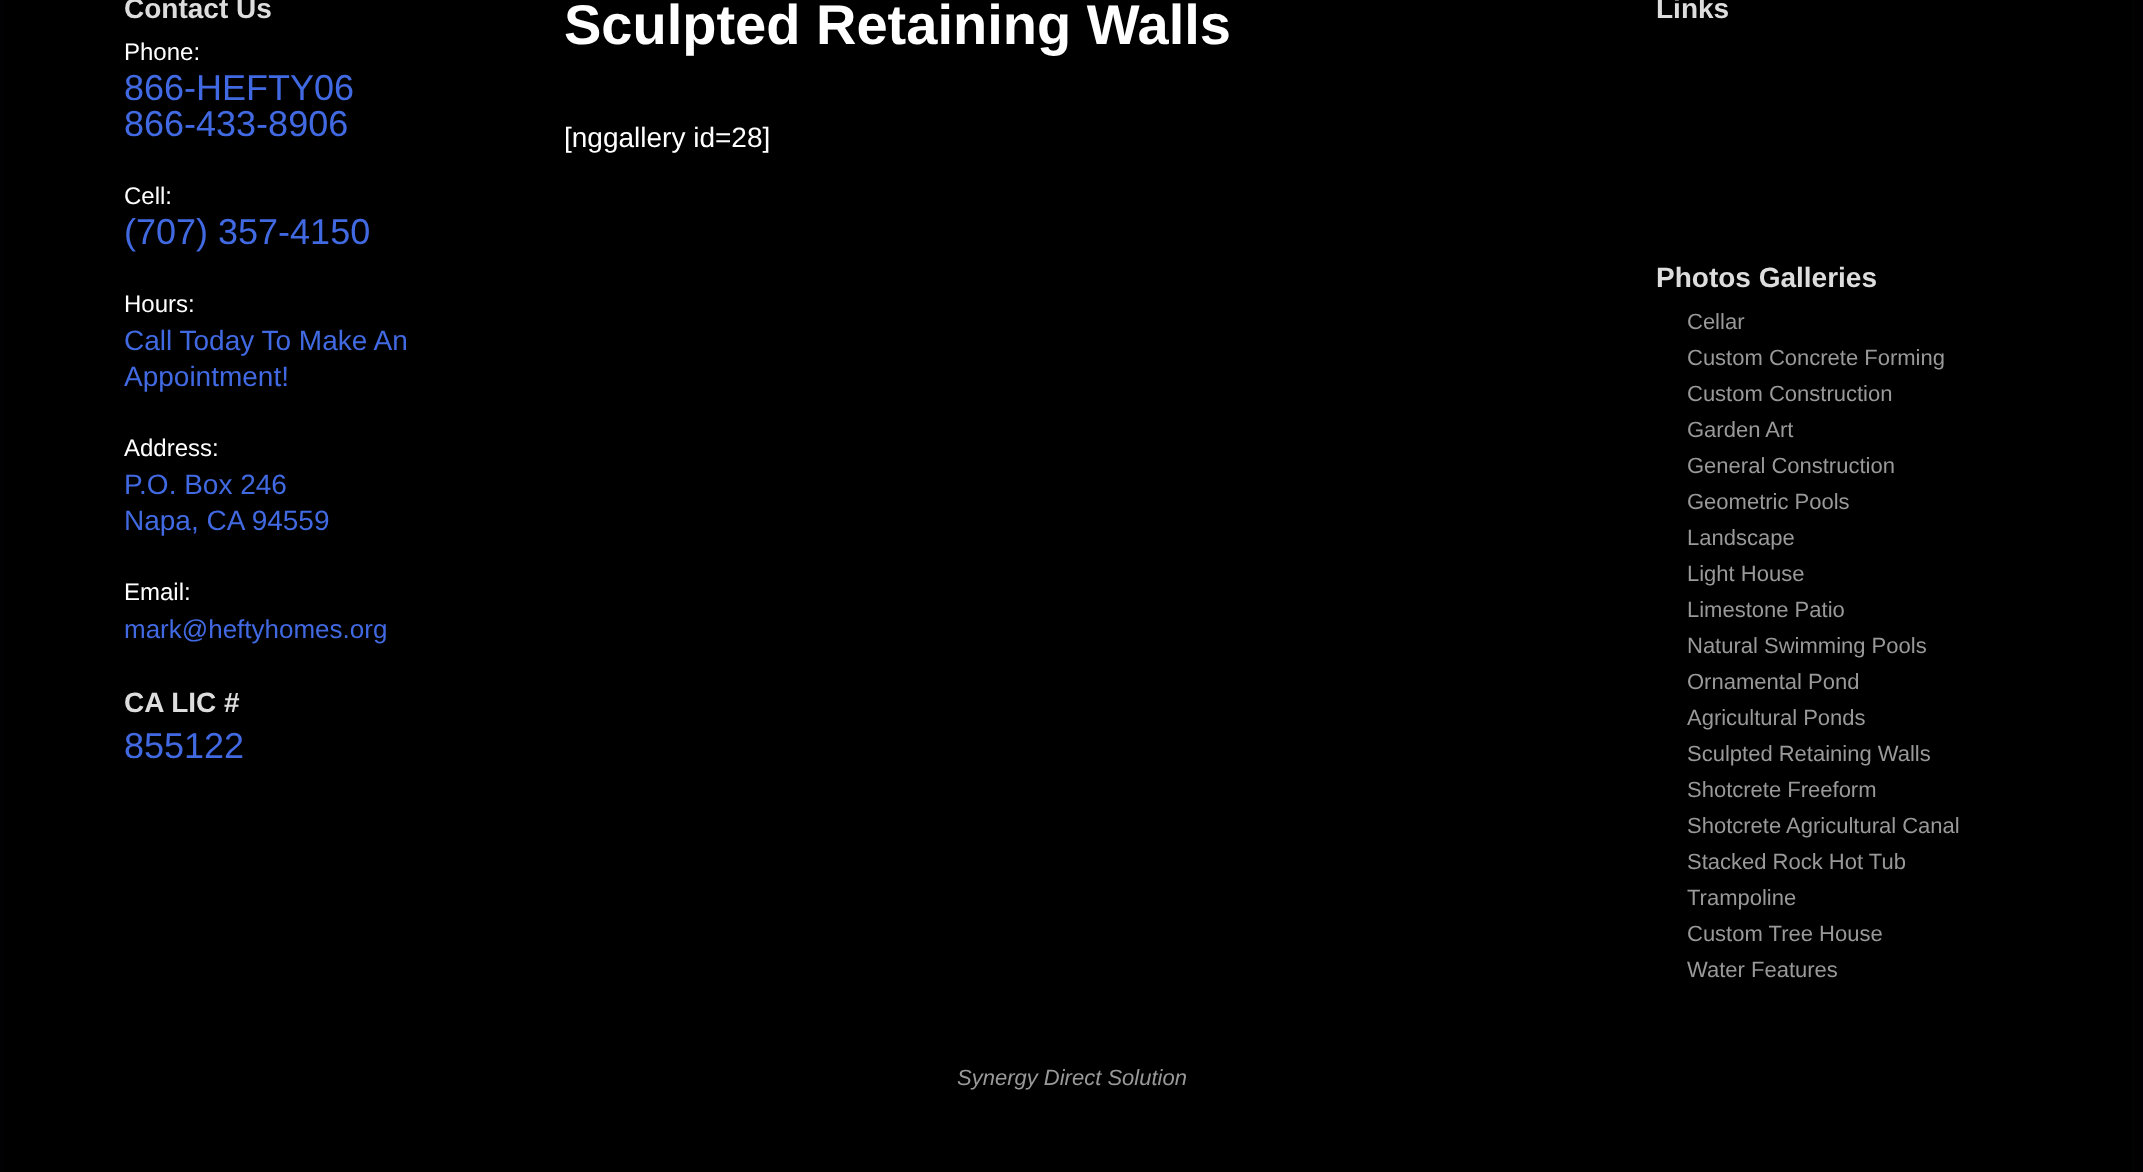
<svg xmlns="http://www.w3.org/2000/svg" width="2143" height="1172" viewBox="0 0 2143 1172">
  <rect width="100%" height="100%" fill="#fff"/>
  <image x="0" y="0" width="2143" height="1172" href="img/1.png"/>
  <text x="124" y="18" font-family="Liberation Sans" font-size="28" font-weight="bold" fill="#ddd">Contact Us</text>
  <text x="124" y="60" font-family="Liberation Sans" font-size="24" fill="#fff">Phone:</text>
  <g font-family="Liberation Sans" font-size="36" fill="#4169e1">
    <text x="124" y="100">866-HEFTY06</text>
    <text x="124" y="136">866-433-8906</text>
  </g>
  <text x="124" y="204" font-family="Liberation Sans" font-size="24" fill="#fff">Cell:</text>
  <text x="124" y="244" font-family="Liberation Sans" font-size="36" fill="#4169e1">(707) 357-4150</text>
  <text x="124" y="312" font-family="Liberation Sans" font-size="24" fill="#fff">Hours:</text>
  <g font-family="Liberation Sans" font-size="28" fill="#4169e1">
    <text x="124" y="350">Call Today To Make An</text>
    <text x="124" y="386">Appointment!</text>
  </g>
  <text x="124" y="456" font-family="Liberation Sans" font-size="24" fill="#fff">Address:</text>
  <g font-family="Liberation Sans" font-size="28" fill="#4169e1">
    <text x="124" y="494">P.O. Box 246</text>
    <text x="124" y="530">Napa, CA 94559</text>
  </g>
  <text x="124" y="600" font-family="Liberation Sans" font-size="24" fill="#fff">Email:</text>
  <text x="124" y="638" font-family="Liberation Sans" font-size="26" fill="#4169e1">mark@heftyhomes.org</text>
  <text x="124" y="712" font-family="Liberation Sans" font-size="28" font-weight="bold" fill="#ddd">CA LIC #</text>
  <text x="124" y="758" font-family="Liberation Sans" font-size="36" fill="#4169e1">855122</text>
  <text x="564" y="44" font-family="Liberation Sans" font-size="56" font-weight="bold" fill="#fff">Sculpted Retaining Walls</text>
  <text x="564" y="147" font-family="Liberation Sans" font-size="28" fill="#fff">[nggallery id=28]</text>
  <g font-family="Liberation Sans" font-size="28" font-weight="bold" fill="#ddd">
    <text x="1656" y="18">Links</text>
    <text x="1656" y="287">Photos Galleries</text>
  </g>
  <g font-family="Liberation Sans" font-size="22" fill="#999">
    <text x="1687" y="329">Cellar</text>
    <text x="1687" y="365">Custom Concrete Forming</text>
    <text x="1687" y="401">Custom Construction</text>
    <text x="1687" y="437">Garden Art</text>
    <text x="1687" y="473">General Construction</text>
    <text x="1687" y="509">Geometric Pools</text>
    <text x="1687" y="545">Landscape</text>
    <text x="1687" y="581">Light House</text>
    <text x="1687" y="617">Limestone Patio</text>
    <text x="1687" y="653">Natural Swimming Pools</text>
    <text x="1687" y="689">Ornamental Pond</text>
    <text x="1687" y="725">Agricultural Ponds</text>
    <text x="1687" y="761">Sculpted Retaining Walls</text>
    <text x="1687" y="797">Shotcrete Freeform</text>
    <text x="1687" y="833">Shotcrete Agricultural Canal</text>
    <text x="1687" y="869">Stacked Rock Hot Tub</text>
    <text x="1687" y="905">Trampoline</text>
    <text x="1687" y="941">Custom Tree House</text>
    <text x="1687" y="977">Water Features</text>
  </g>
  <text x="957" y="1085" font-family="Liberation Sans" font-size="22" font-style="italic" fill="#999">Synergy Direct Solution</text>
</svg>
